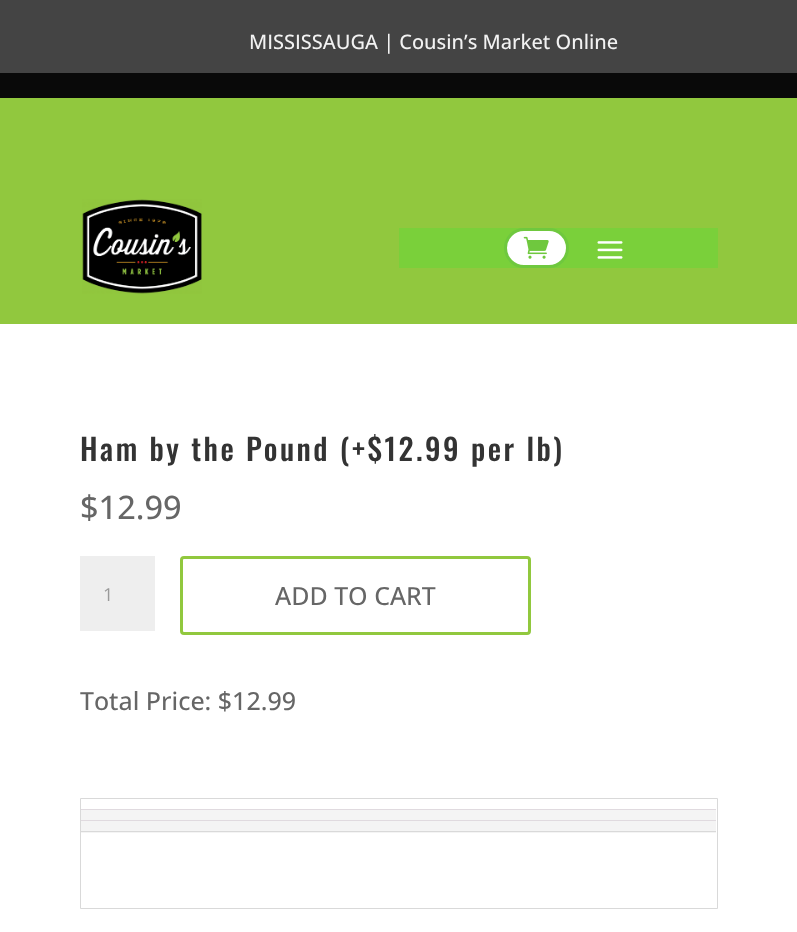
<svg xmlns="http://www.w3.org/2000/svg" width="797" height="932" viewBox="0 0 797 932">
  <rect width="100%" height="100%" fill="#090909"/>
  <path d="M0 0h797v73H0z" fill="#444"/>
  <path d="M0 98h797v226H0z" fill="#91c83e"/>
  <image x="82" y="199" width="120" height="95" href="img/1.png"/>
  <path d="M399 228h319v40H399z" fill="#7ad03a"/>
  <rect x="505.5" y="229.5" width="62" height="37" rx="18.5" fill="#fff" stroke="#6fc83e" stroke-width="3"/>
  <image x="523" y="236" width="26" height="23" href="img/2.png"/>
  <image x="597" y="241" width="26" height="18" href="img/3.png"/>
  <path d="M0 324h797v608H0z" fill="#fff"/>
  <path d="M80 556h75v75H80z" fill="#eee"/>
  <rect x="181.5" y="557.5" width="348" height="76" rx="2.5" fill="none" stroke="#91c83e" stroke-width="3"/>
  <path d="M80.5 798.5h637v110H80.5z" fill="none" stroke="#d9d9d9"/>
  <path d="M81 810h635v23H81z" fill="#f4f4f4"/>
  <path d="M81 809h635v1H81z" fill="#e0dadf"/>
  <path d="M81 820h635v1H81z" fill="#e0dadf"/>
  <path d="M81 831h635v1H81z" fill="#d9d9d9"/>
  <text x="249" y="49" font-family="Open Sans" font-size="20" font-weight="500" fill="#f2f2f2">MISSISSAUGA | Cousin’s Market Online</text>
  <text x="80" y="461" font-family="Oswald" font-size="30" font-weight="500" letter-spacing="2.5" fill="#333">Ham by the Pound (+$12.99 per lb)</text>
  <text x="80" y="519" font-family="Open Sans" font-size="32.5" font-weight="500" fill="#666">$12.99</text>
  <text x="103" y="601" font-family="Open Sans" font-size="18" fill="#999">1</text>
  <g font-family="Open Sans" font-size="25" font-weight="500" fill="#666">
    <text x="275" y="605">ADD TO CART</text>
    <text x="80" y="710">Total Price: $12.99</text>
  </g>
</svg>
